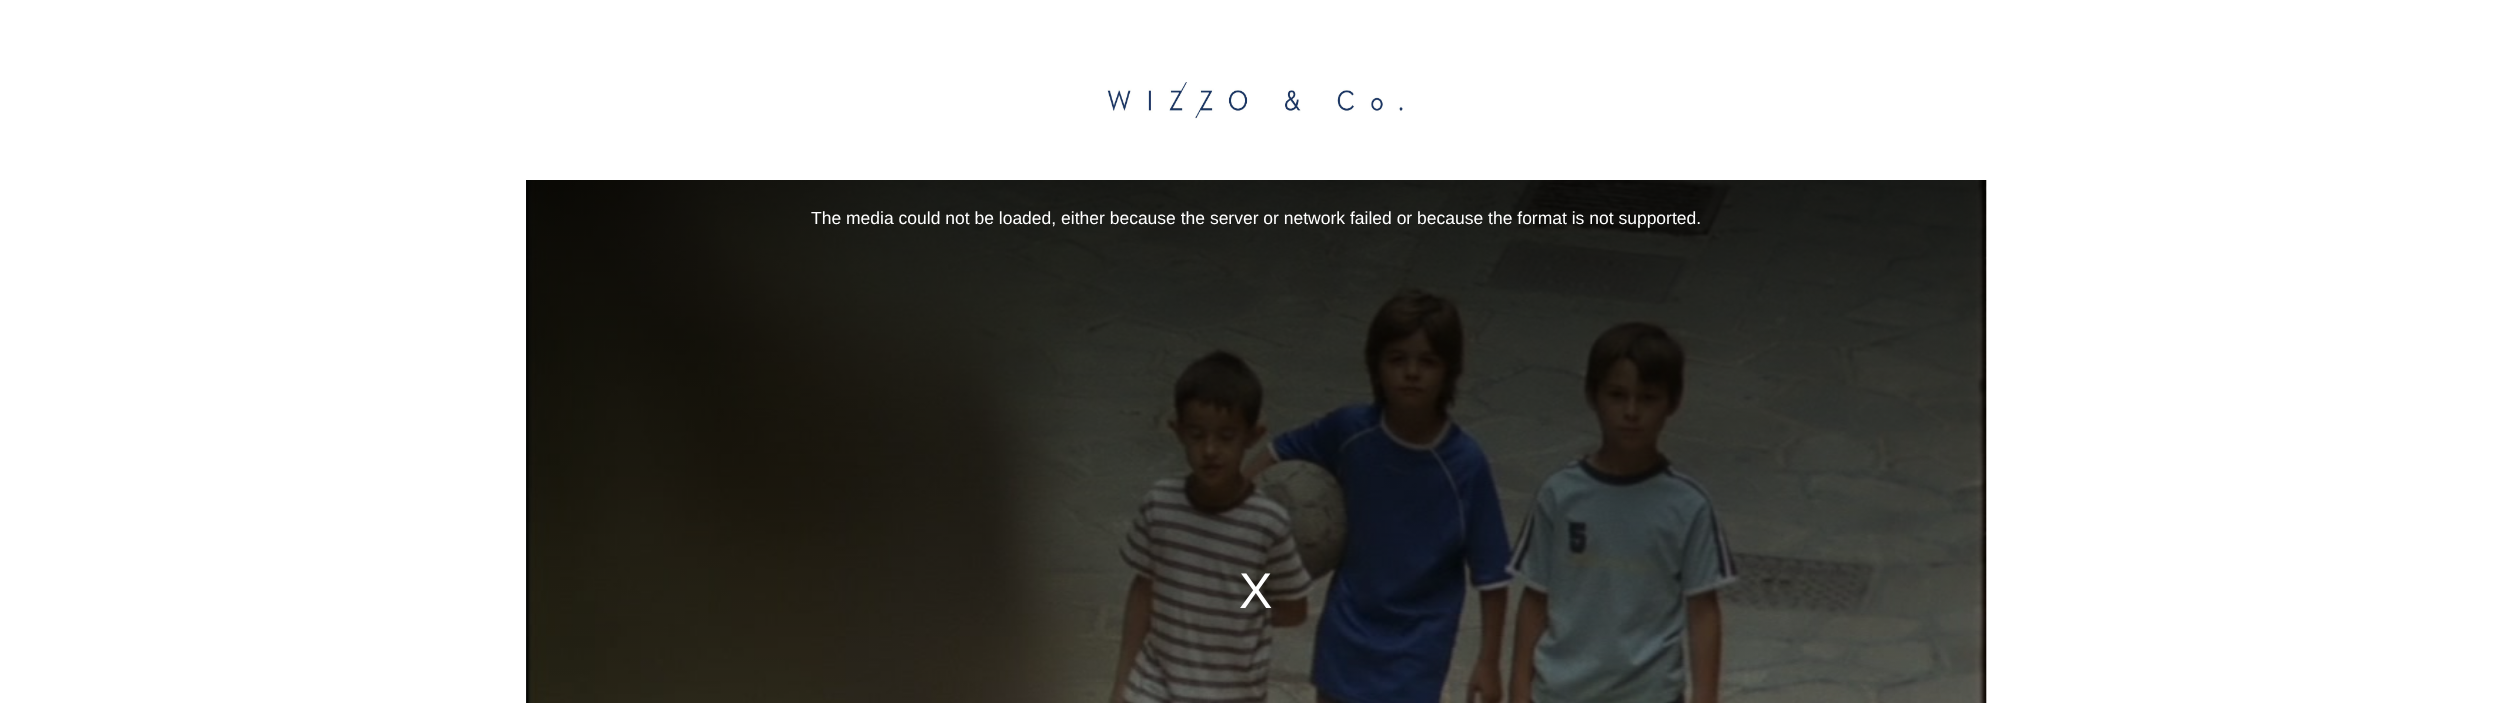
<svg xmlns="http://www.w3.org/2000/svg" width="2511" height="703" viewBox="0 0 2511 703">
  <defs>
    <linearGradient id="g1" gradientUnits="userSpaceOnUse" x1="1256" y1="180" x2="1256" y2="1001"><stop offset="0" stop-color="#000" stop-opacity="0.8"/><stop offset="1" stop-color="#000" stop-opacity="0"/></linearGradient>
  </defs>
  <rect width="100%" height="100%" fill="#fff"/>
  <image x="1107" y="82" width="296" height="37" href="img/1.png"/>
  <image x="526" y="180" width="1461" height="523" href="img/2.png"/>
  <image x="526" y="180" width="1461" height="523" href="img/3.png"/>
  <path d="M526 180h1460v523H526z" fill="url(#g1)"/>
  <text x="811" y="224" font-family="Liberation Sans" font-size="17.5" fill="#fff">The media could not be loaded, either because the server or network failed or because the format is not supported.</text>
  <text x="1239" y="608" font-family="Liberation Sans" font-size="50" fill="#fff">X</text>
</svg>
